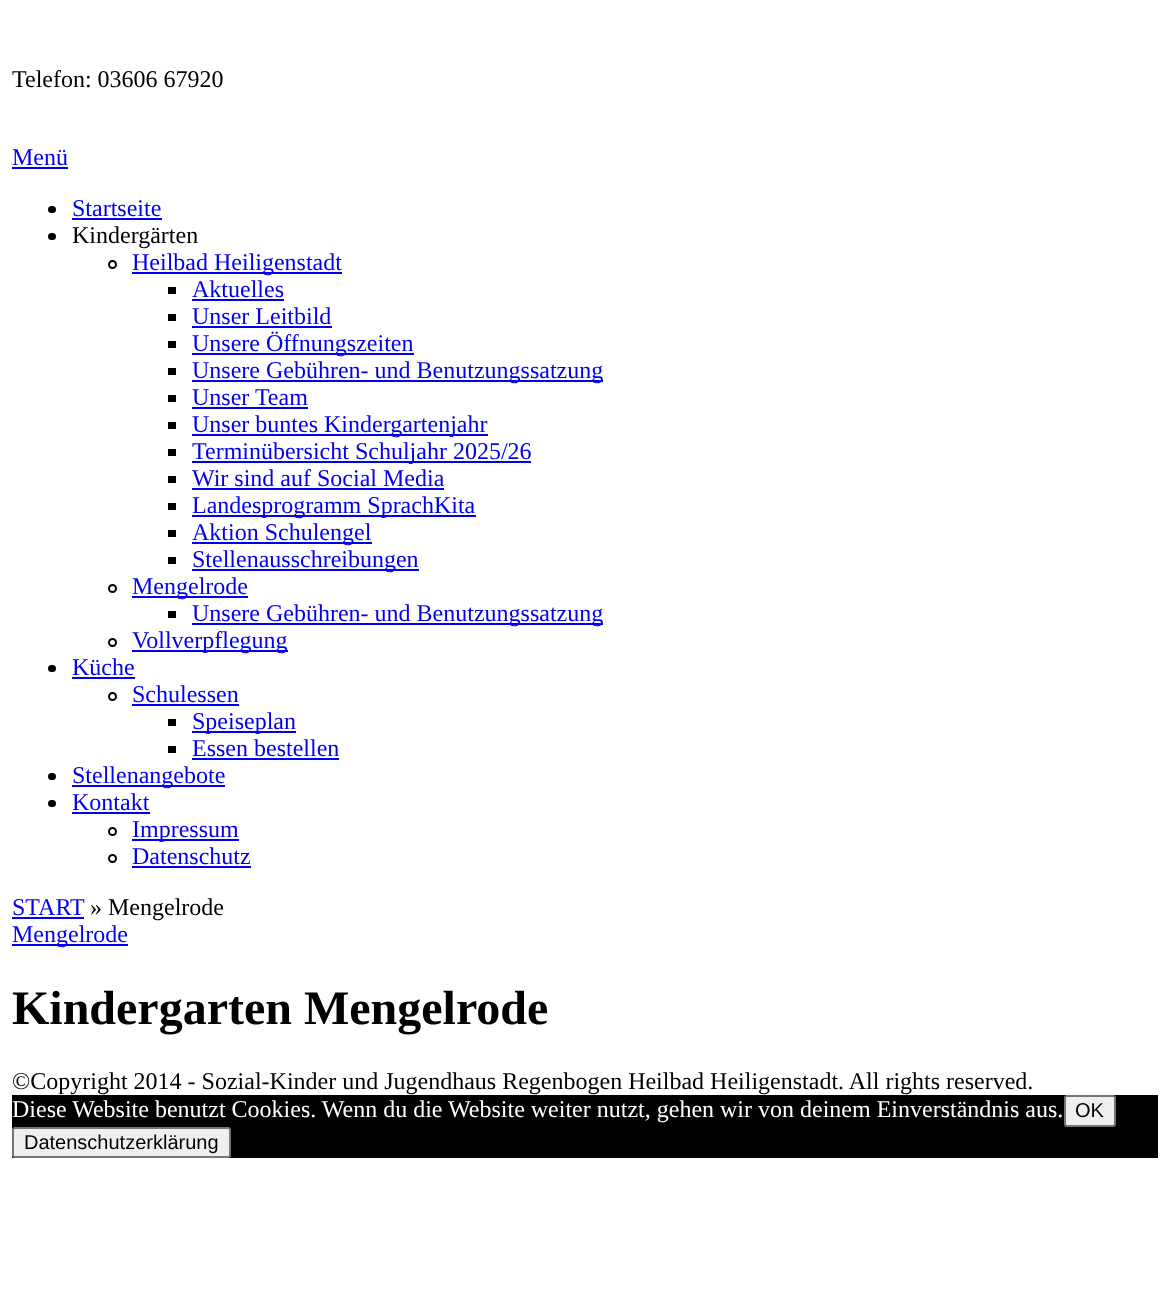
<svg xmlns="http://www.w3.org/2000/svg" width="1170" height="1300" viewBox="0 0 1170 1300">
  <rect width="100%" height="100%" fill="#fff"/>
  <path d="M12 167h56v2H12z" fill="#00e"/>
  <rect x="48" y="206" width="8" height="7" rx="3.5" fill="#000"/>
  <path d="M72 218h90v2H72z" fill="#00e"/>
  <rect x="48" y="233" width="8" height="7" rx="3.5" fill="#000"/>
  <circle cx="112.5" cy="264.5" r="3.5" fill="none" stroke="#000" stroke-width="2"/>
  <path d="M132 272h210v2H132z" fill="#00e"/>
  <path d="M168 287h8v7H168z" fill="#000"/>
  <path d="M192 299h92v2H192z" fill="#00e"/>
  <path d="M168 314h8v7H168z" fill="#000"/>
  <path d="M192 326h140v2H192z" fill="#00e"/>
  <path d="M168 341h8v7H168z" fill="#000"/>
  <path d="M192 353h222v2H192z" fill="#00e"/>
  <path d="M168 368h8v7H168z" fill="#000"/>
  <path d="M192 380h411v2H192z" fill="#00e"/>
  <path d="M168 395h8v7H168z" fill="#000"/>
  <path d="M192 407h116v2H192z" fill="#00e"/>
  <path d="M168 422h8v7H168z" fill="#000"/>
  <path d="M192 434h296v2H192z" fill="#00e"/>
  <path d="M168 449h8v7H168z" fill="#000"/>
  <path d="M192 461h339v2H192z" fill="#00e"/>
  <path d="M168 476h8v7H168z" fill="#000"/>
  <path d="M192 488h252v2H192z" fill="#00e"/>
  <path d="M168 503h8v7H168z" fill="#000"/>
  <path d="M192 515h284v2H192z" fill="#00e"/>
  <path d="M168 530h8v7H168z" fill="#000"/>
  <path d="M192 542h180v2H192z" fill="#00e"/>
  <path d="M168 557h8v7H168z" fill="#000"/>
  <path d="M192 569h227v2H192z" fill="#00e"/>
  <circle cx="112.5" cy="588.5" r="3.5" fill="none" stroke="#000" stroke-width="2"/>
  <path d="M132 596h116v2H132z" fill="#00e"/>
  <path d="M168 611h8v7H168z" fill="#000"/>
  <path d="M192 623h411v2H192z" fill="#00e"/>
  <circle cx="112.5" cy="642.5" r="3.5" fill="none" stroke="#000" stroke-width="2"/>
  <path d="M132 650h156v2H132z" fill="#00e"/>
  <rect x="48" y="665" width="8" height="7" rx="3.5" fill="#000"/>
  <path d="M72 677h63v2H72z" fill="#00e"/>
  <circle cx="112.5" cy="696.5" r="3.5" fill="none" stroke="#000" stroke-width="2"/>
  <path d="M132 704h107v2H132z" fill="#00e"/>
  <path d="M168 719h8v7H168z" fill="#000"/>
  <path d="M192 731h104v2H192z" fill="#00e"/>
  <path d="M168 746h8v7H168z" fill="#000"/>
  <path d="M192 758h147v2H192z" fill="#00e"/>
  <rect x="48" y="773" width="8" height="7" rx="3.5" fill="#000"/>
  <path d="M72 785h153v2H72z" fill="#00e"/>
  <rect x="48" y="800" width="8" height="7" rx="3.5" fill="#000"/>
  <path d="M72 812h78v2H72z" fill="#00e"/>
  <circle cx="112.5" cy="831.5" r="3.5" fill="none" stroke="#000" stroke-width="2"/>
  <path d="M132 839h107v2H132z" fill="#00e"/>
  <circle cx="112.5" cy="858.5" r="3.5" fill="none" stroke="#000" stroke-width="2"/>
  <path d="M132 866h119v2H132z" fill="#00e"/>
  <path d="M12 917h72v2H12z" fill="#00e"/>
  <path d="M12 944h116v2H12z" fill="#00e"/>
  <path d="M12 1095h1146v63H12z" fill="#000"/>
  <rect x="1065" y="1096" width="50" height="30" rx="2" fill="#efefef" stroke="#767676" stroke-width="2"/>
  <rect x="13" y="1128" width="217" height="29" rx="2" fill="#efefef" stroke="#767676" stroke-width="2"/>
  <text x="12" y="87" font-family="Liberation Serif" font-size="24" fill="#000">Telefon: 03606 67920</text>
  <g font-family="Liberation Serif" font-size="24" fill="#00e">
    <text x="12" y="165">Menü</text>
    <text x="72" y="216">Startseite</text>
  </g>
  <text x="72" y="243" font-family="Liberation Serif" font-size="24" fill="#000">Kindergärten</text>
  <g font-family="Liberation Serif" font-size="24" fill="#00e">
    <text x="132" y="270">Heilbad Heiligenstadt</text>
    <text x="192" y="297">Aktuelles</text>
    <text x="192" y="324">Unser Leitbild</text>
    <text x="192" y="351">Unsere Öffnungszeiten</text>
    <text x="192" y="378">Unsere Gebühren- und Benutzungssatzung</text>
    <text x="192" y="405">Unser Team</text>
    <text x="192" y="432">Unser buntes Kindergartenjahr</text>
    <text x="192" y="459">Terminübersicht Schuljahr 2025/26</text>
    <text x="192" y="486">Wir sind auf Social Media</text>
    <text x="192" y="513">Landesprogramm SprachKita</text>
    <text x="192" y="540">Aktion Schulengel</text>
    <text x="192" y="567">Stellenausschreibungen</text>
    <text x="132" y="594">Mengelrode</text>
    <text x="192" y="621">Unsere Gebühren- und Benutzungssatzung</text>
    <text x="132" y="648">Vollverpflegung</text>
    <text x="72" y="675">Küche</text>
    <text x="132" y="702">Schulessen</text>
    <text x="192" y="729">Speiseplan</text>
    <text x="192" y="756">Essen bestellen</text>
    <text x="72" y="783">Stellenangebote</text>
    <text x="72" y="810">Kontakt</text>
    <text x="132" y="837">Impressum</text>
    <text x="132" y="864">Datenschutz</text>
    <text x="12" y="915">START</text>
  </g>
  <text x="90" y="915" font-family="Liberation Serif" font-size="24" fill="#000">» Mengelrode</text>
  <text x="12" y="942" font-family="Liberation Serif" font-size="24" fill="#00e">Mengelrode</text>
  <text x="12" y="1024" font-family="Liberation Serif" font-size="48" font-weight="bold" fill="#000">Kindergarten Mengelrode</text>
  <text x="12" y="1089" font-family="Liberation Serif" font-size="24" fill="#000">©Copyright 2014 - Sozial-Kinder und Jugendhaus Regenbogen Heilbad Heiligenstadt. All rights reserved.</text>
  <text x="12" y="1117" font-family="Liberation Serif" font-size="24" fill="#fff">Diese Website benutzt Cookies. Wenn du die Website weiter nutzt, gehen wir von deinem Einverständnis aus.</text>
  <g font-family="Liberation Sans" font-size="20" fill="#000">
    <text x="1075" y="1117">OK</text>
    <text x="24" y="1149">Datenschutzerklärung</text>
  </g>
</svg>
